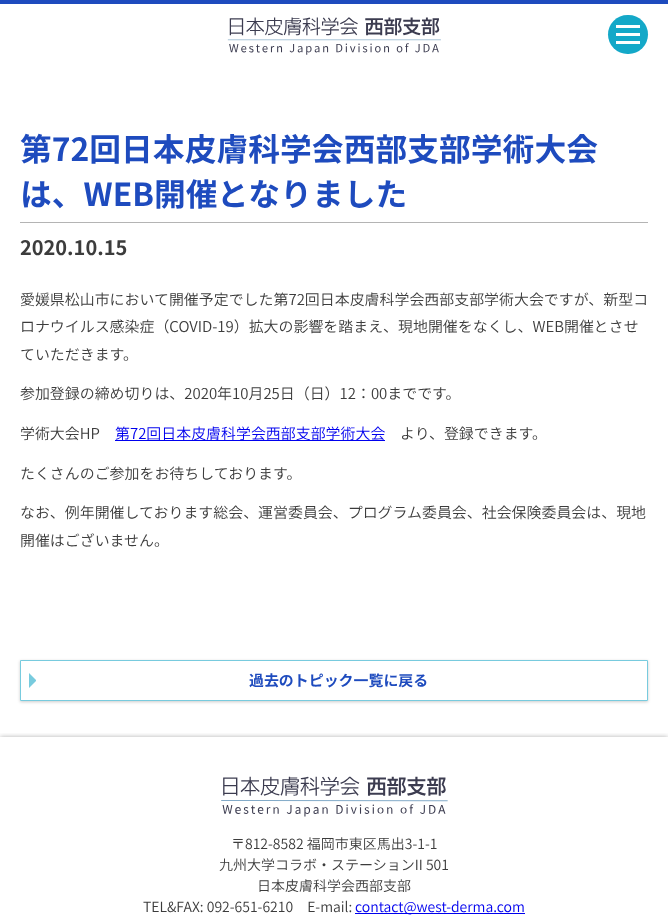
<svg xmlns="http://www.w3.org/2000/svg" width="668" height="917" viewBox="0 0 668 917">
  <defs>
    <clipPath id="clip1"><path d="M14 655H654V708H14ZM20 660H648V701H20Z" clip-rule="evenodd"/></clipPath>
    <clipPath id="clip2"><path d="M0 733h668v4H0z"/></clipPath>
  </defs>
  <rect width="100%" height="100%" fill="#fff"/>
  <path d="M0 0h668v4H0z" fill="#1e4bbe"/>
  <image x="227" y="17" width="214" height="38" href="img/1.png"/>
  <rect x="608" y="15" width="40" height="39" rx="19.5" fill="#14a8c8"/>
  <path d="M616 25h24v3H616z" fill="#fff"/>
  <path d="M616 33h24v3H616z" fill="#fff"/>
  <path d="M616 41h24v3H616z" fill="#fff"/>
  <path d="M20 222h628v1H20z" fill="#b4b4b4"/>
  <path d="M115 440h270v1H115z" fill="#00e"/>
  <g clip-path="url(#clip1)">
    <path d="M20 661h628v41H20z" fill="#00000033" filter="blur(1.5px)"/>
  </g>
  <path d="M20.5 660.5h627v40H20.5z" fill="none" stroke="#78cbde"/>
  <path d="M29 688V673L36 680V681Z" fill="#78cbde"/>
  <g clip-path="url(#clip2)">
    <path d="M0 737h668v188H0z" fill="#0000004d" filter="blur(2.5px)"/>
  </g>
  <image x="221" y="776" width="227" height="41" href="img/2.png"/>
  <path d="M355 913h170v1H355z" fill="#00e"/>
  <g font-family="Noto Sans JP" font-size="31.8" font-weight="bold" fill="#1e4bbe">
    <text x="20" y="161">第72回日本皮膚科学会西部支部学術大会</text>
    <text x="20" y="206">は、WEB開催となりました</text>
  </g>
  <text x="20" y="255" font-family="Noto Sans JP" font-size="20" font-weight="bold" fill="#3c3c3c">2020.10.15</text>
  <g font-family="Noto Sans JP" font-size="14.95" font-weight="300" fill="#3c3c3c">
    <text x="20" y="305">愛媛県松山市において開催予定でした第72回日本皮膚科学会西部支部学術大会ですが、新型コ</text>
    <text x="20" y="332">ロナウイルス感染症（COVID-19）拡大の影響を踏まえ、現地開催をなくし、WEB開催とさせ</text>
    <text x="20" y="360">ていただきます。</text>
    <text x="20" y="399">参加登録の締め切りは、2020年10月25日（日）12：00までです。</text>
    <text x="20" y="439">学術大会HP</text>
  </g>
  <text x="115" y="439" font-family="Noto Sans JP" font-size="14.95" font-weight="300" fill="#00e">第72回日本皮膚科学会西部支部学術大会</text>
  <g font-family="Noto Sans JP" font-size="14.95" font-weight="300" fill="#3c3c3c">
    <text x="400" y="439">より、登録できます。</text>
    <text x="20" y="479">たくさんのご参加をお待ちしております。</text>
    <text x="20" y="518">なお、例年開催しております総会、運営委員会、プログラム委員会、社会保険委員会は、現地</text>
    <text x="20" y="546">開催はございません。</text>
  </g>
  <text x="249" y="686" font-family="Noto Sans JP" font-size="14.95" font-weight="bold" fill="#1e4bbe">過去のトピック一覧に戻る</text>
  <g font-family="Noto Sans JP" font-size="14" font-weight="300" fill="#3c3c3c">
    <text x="231" y="849">〒812-8582 福岡市東区馬出3-1-1</text>
    <text x="219" y="870">九州大学コラボ・ステーションII 501</text>
    <text x="257" y="891">日本皮膚科学会西部支部</text>
    <text x="143" y="912">TEL&amp;FAX: 092-651-6210 E-mail:</text>
  </g>
  <text x="355" y="912" font-family="Noto Sans JP" font-size="14" font-weight="300" fill="#00e">contact@west-derma.com</text>
</svg>
